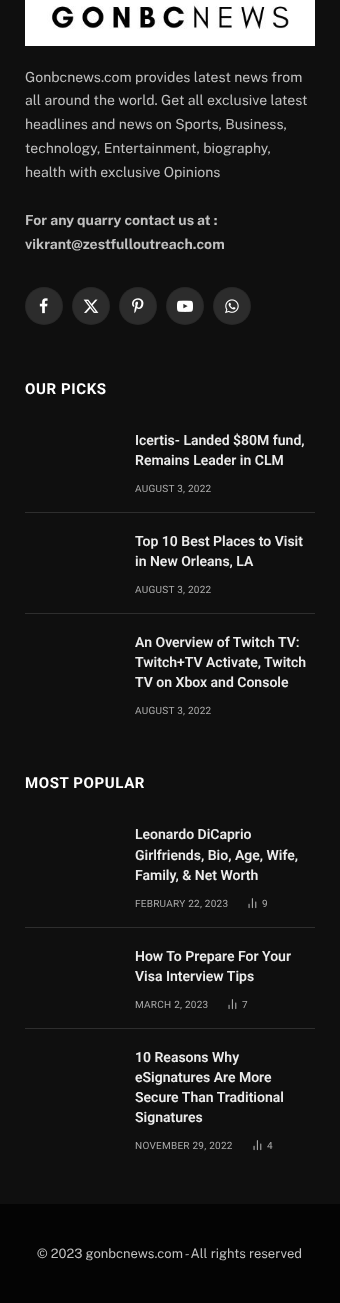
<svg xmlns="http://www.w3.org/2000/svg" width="340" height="1303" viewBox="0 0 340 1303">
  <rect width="100%" height="100%" fill="#0f0f0f"/>
  <image x="25" y="0" width="290" height="46" href="img/1.png"/>
  <circle cx="44" cy="306" r="19" fill="#2c2c2c"/>
  <circle cx="44" cy="306" r="18.5" fill="none" stroke="#00000017"/>
  <image x="39" y="298" width="9" height="16" href="img/2.png"/>
  <circle cx="91" cy="306" r="19" fill="#2c2c2c"/>
  <circle cx="91" cy="306" r="18.5" fill="none" stroke="#00000017"/>
  <image x="83" y="299" width="16" height="14" href="img/3.png"/>
  <circle cx="138" cy="306" r="19" fill="#2c2c2c"/>
  <circle cx="138" cy="306" r="18.5" fill="none" stroke="#00000017"/>
  <image x="132" y="298" width="12" height="16" href="img/4.png"/>
  <circle cx="185" cy="306" r="19" fill="#2c2c2c"/>
  <circle cx="185" cy="306" r="18.5" fill="none" stroke="#00000017"/>
  <image x="177" y="300" width="16" height="12" href="img/5.png"/>
  <circle cx="232" cy="306" r="19" fill="#2c2c2c"/>
  <circle cx="232" cy="306" r="18.5" fill="none" stroke="#00000017"/>
  <image x="225" y="299" width="14" height="15" href="img/6.png"/>
  <path d="M25 512h290v1H25z" fill="#2e2e2e"/>
  <path d="M25 613h290v1H25z" fill="#2e2e2e"/>
  <image x="248" y="898" width="9" height="11" href="img/7.png"/>
  <path d="M25 927h290v1H25z" fill="#2e2e2e"/>
  <image x="228" y="999" width="9" height="11" href="img/7.png"/>
  <path d="M25 1028h290v1H25z" fill="#2e2e2e"/>
  <image x="253" y="1140" width="9" height="11" href="img/7.png"/>
  <path d="M0 1204h340v99H0z" fill="#040404"/>
  <g font-family="Public Sans" font-size="14" fill="#c0c0c0">
    <text x="25" y="82">Gonbcnews.com provides latest news from</text>
    <text x="25" y="105">all around the world. Get all exclusive latest</text>
    <text x="25" y="129">headlines and news on Sports, Business,</text>
    <text x="25" y="153">technology, Entertainment, biography,</text>
    <text x="25" y="177">health with exclusive Opinions</text>
  </g>
  <g font-family="Public Sans" font-size="14" font-weight="bold" fill="#c0c0c0">
    <text x="25" y="225">For any quarry contact us at :</text>
    <text x="25" y="249">vikrant@zestfulloutreach.com</text>
  </g>
  <text x="25" y="394" font-family="Roboto" font-size="15" font-weight="bold" letter-spacing="0.6" fill="#fff">OUR PICKS</text>
  <g font-family="Roboto" font-size="14" font-weight="600" fill="#ececec">
    <text x="135" y="445">Icertis- Landed $80M fund,</text>
    <text x="135" y="465">Remains Leader in CLM</text>
  </g>
  <text x="135" y="492" font-family="Roboto" font-size="10" letter-spacing="0.25" fill="#ababab">AUGUST 3, 2022</text>
  <g font-family="Roboto" font-size="14" font-weight="600" fill="#ececec">
    <text x="135" y="546">Top 10 Best Places to Visit</text>
    <text x="135" y="566">in New Orleans, LA</text>
  </g>
  <text x="135" y="593" font-family="Roboto" font-size="10" letter-spacing="0.25" fill="#ababab">AUGUST 3, 2022</text>
  <g font-family="Roboto" font-size="14" font-weight="600" fill="#ececec">
    <text x="135" y="647">An Overview of Twitch TV:</text>
    <text x="135" y="667">Twitch+TV Activate, Twitch</text>
    <text x="135" y="687">TV on Xbox and Console</text>
  </g>
  <text x="135" y="714" font-family="Roboto" font-size="10" letter-spacing="0.25" fill="#ababab">AUGUST 3, 2022</text>
  <text x="25" y="788" font-family="Roboto" font-size="15" font-weight="bold" letter-spacing="0.6" fill="#fff">MOST POPULAR</text>
  <g font-family="Roboto" font-size="14" font-weight="600" fill="#ececec">
    <text x="135" y="839">Leonardo DiCaprio</text>
    <text x="135" y="860">Girlfriends, Bio, Age, Wife,</text>
    <text x="135" y="880">Family, &amp; Net Worth</text>
  </g>
  <g font-family="Roboto" font-size="10" letter-spacing="0.25" fill="#ababab">
    <text x="135" y="907">FEBRUARY 22, 2023</text>
    <text x="262" y="907">9</text>
  </g>
  <g font-family="Roboto" font-size="14" font-weight="600" fill="#ececec">
    <text x="135" y="961">How To Prepare For Your</text>
    <text x="135" y="981">Visa Interview Tips</text>
  </g>
  <g font-family="Roboto" font-size="10" letter-spacing="0.25" fill="#ababab">
    <text x="135" y="1008">MARCH 2, 2023</text>
    <text x="242" y="1008">7</text>
  </g>
  <g font-family="Roboto" font-size="14" font-weight="600" fill="#ececec">
    <text x="135" y="1062">10 Reasons Why</text>
    <text x="135" y="1082">eSignatures Are More</text>
    <text x="135" y="1102">Secure Than Traditional</text>
    <text x="135" y="1122">Signatures</text>
  </g>
  <g font-family="Roboto" font-size="10" letter-spacing="0.25" fill="#ababab">
    <text x="135" y="1149">NOVEMBER 29, 2022</text>
    <text x="267" y="1149">4</text>
  </g>
  <text x="37" y="1258" font-family="Public Sans" font-size="13" fill="#c0c0c0">© 2023 gonbcnews.com - All rights reserved</text>
</svg>
